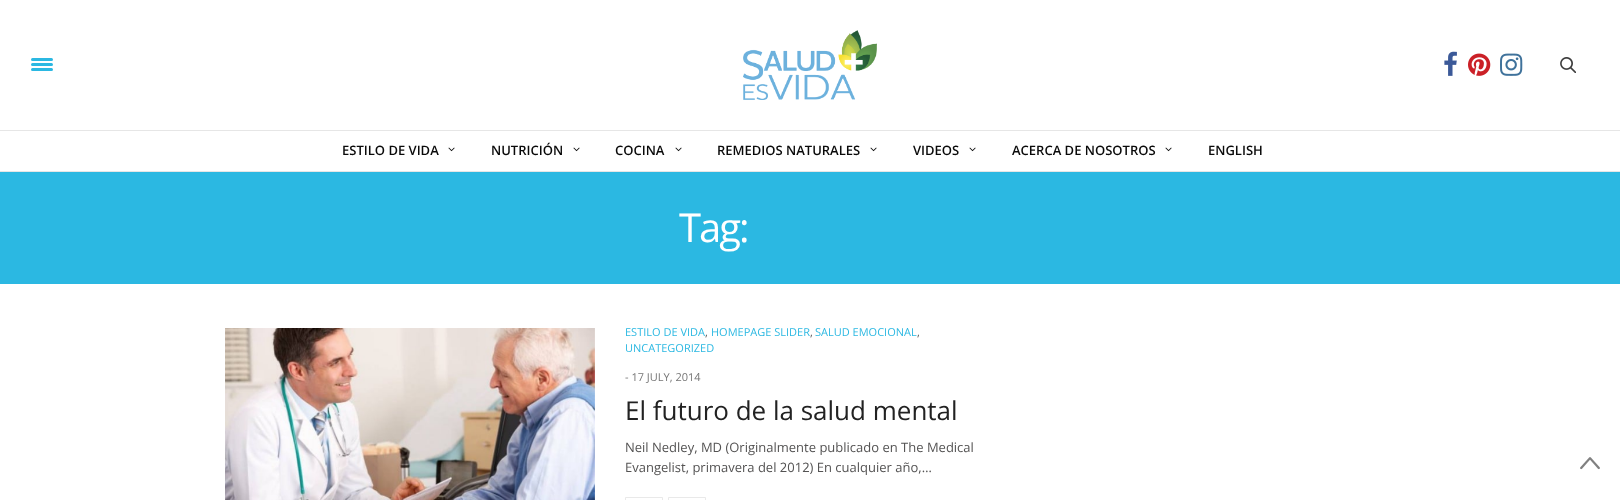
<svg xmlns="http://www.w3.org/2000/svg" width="1620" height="500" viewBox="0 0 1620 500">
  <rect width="100%" height="100%" fill="#fff"/>
  <path d="M0 130h1620v1H0z" fill="#e6e6e6"/>
  <rect x="31" y="58" width="22" height="3" rx="1.5" fill="#2bb8e2"/>
  <rect x="31" y="63" width="22" height="3" rx="1.5" fill="#2bb8e2"/>
  <rect x="31" y="68" width="22" height="3" rx="1.5" fill="#2bb8e2"/>
  <image x="743" y="30" width="134" height="70" href="img/1.png"/>
  <image x="1444" y="51" width="13" height="25" href="img/2.png"/>
  <image x="1468" y="53" width="23" height="23" href="img/3.png"/>
  <image x="1500" y="53" width="23" height="23" href="img/4.png"/>
  <image x="1560" y="57" width="16" height="16" href="img/5.png"/>
  <path d="M0 171h1620v1H0z" fill="#e6e6e6"/>
  <image x="448" y="147" width="7" height="5" href="img/6.png"/>
  <image x="573" y="147" width="7" height="5" href="img/6.png"/>
  <image x="675" y="147" width="7" height="5" href="img/6.png"/>
  <image x="870" y="147" width="7" height="5" href="img/6.png"/>
  <image x="969" y="147" width="7" height="5" href="img/6.png"/>
  <image x="1165" y="147" width="7" height="5" href="img/6.png"/>
  <path d="M0 172h1620v112H0z" fill="#2bb8e2"/>
  <image x="225" y="328" width="370" height="172" href="img/7.png"/>
  <path d="M625.5 497.5h37v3H625.5z" fill="none" stroke="#e9e9e9"/>
  <path d="M668.5 497.5h37v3H668.5z" fill="none" stroke="#e9e9e9"/>
  <image x="1580" y="457" width="20" height="13" href="img/8.png"/>
  <g font-family="Open Sans" font-size="13" font-weight="600" fill="#0a0a0a">
    <text x="342" y="155">ESTILO DE VIDA</text>
    <text x="491" y="155">NUTRICIÓN</text>
    <text x="615" y="155">COCINA</text>
    <text x="717" y="155">REMEDIOS NATURALES</text>
    <text x="913" y="155">VIDEOS</text>
    <text x="1012" y="155">ACERCA DE NOSOTROS</text>
    <text x="1208" y="155">ENGLISH</text>
  </g>
  <text x="679" y="242" font-family="Open Sans" font-size="40" letter-spacing="-2" fill="#fff">Tag:</text>
  <text x="625" y="336" font-family="Open Sans" font-size="11" fill="#2bb8e2">ESTILO DE VIDA</text>
  <text x="705" y="336" font-family="Open Sans" font-size="11" fill="#545353">,</text>
  <text x="711" y="336" font-family="Open Sans" font-size="11" fill="#2bb8e2">HOMEPAGE SLIDER</text>
  <text x="810" y="336" font-family="Open Sans" font-size="11" fill="#545353">,</text>
  <text x="815" y="336" font-family="Open Sans" font-size="11" fill="#2bb8e2">SALUD EMOCIONAL</text>
  <text x="917" y="336" font-family="Open Sans" font-size="11" fill="#545353">,</text>
  <text x="625" y="352" font-family="Open Sans" font-size="11" fill="#2bb8e2">UNCATEGORIZED</text>
  <text x="625" y="381" font-family="Open Sans" font-size="11" fill="#767676">- 17 JULY, 2014</text>
  <text x="625" y="420" font-family="Open Sans" font-size="26" fill="#222">El futuro de la salud mental</text>
  <g font-family="Open Sans" font-size="13" fill="#545353">
    <text x="625" y="452">Neil Nedley, MD (Originalmente publicado en The Medical</text>
    <text x="625" y="472">Evangelist, primavera del 2012) En cualquier año,…</text>
  </g>
</svg>
